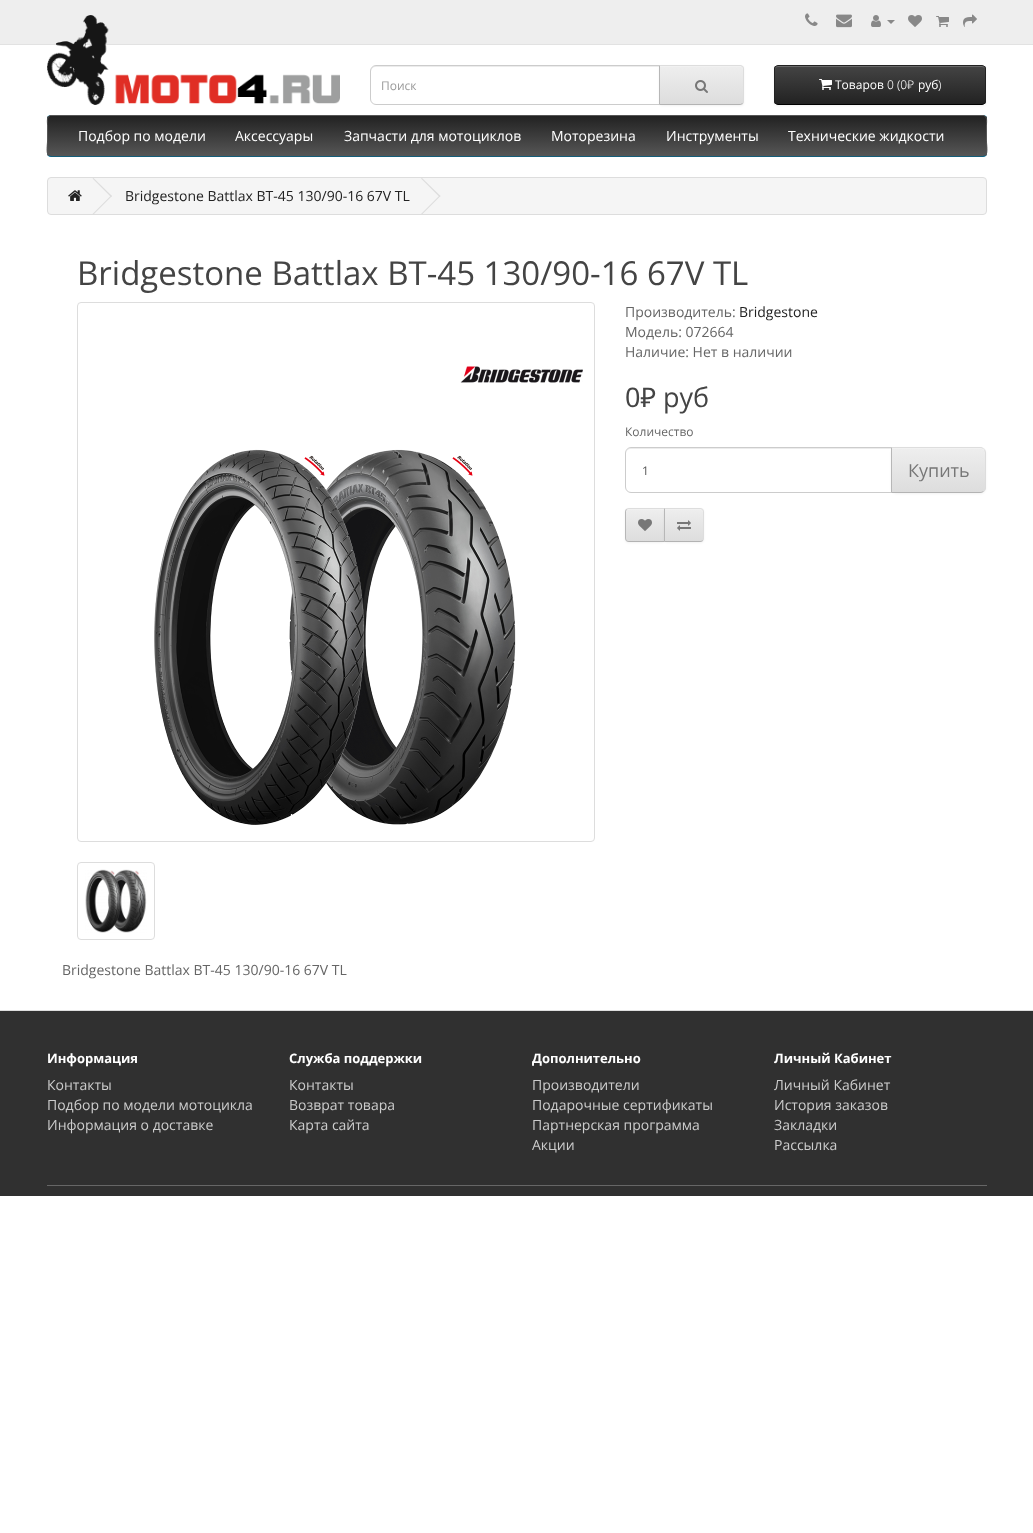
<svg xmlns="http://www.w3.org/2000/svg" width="1033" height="1533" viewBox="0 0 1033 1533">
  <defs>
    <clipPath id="clip1"><path d="M659 65H740C742 65 744 67 744 69V101C744 103 742 105 740 105H659Z"/></clipPath>
    <linearGradient id="g1" gradientUnits="userSpaceOnUse" x1="702" y1="66" x2="702" y2="104"><stop offset="0" stop-color="#eee"/><stop offset="1" stop-color="#ddd"/></linearGradient>
    <clipPath id="clip2"><rect x="774" y="65" width="212" height="40" rx="4"/></clipPath>
    <linearGradient id="g2" gradientUnits="userSpaceOnUse" x1="880" y1="66" x2="880" y2="104"><stop offset="0" stop-color="#444"/><stop offset="1" stop-color="#222"/></linearGradient>
    <clipPath id="clip3"><rect x="47" y="115" width="940" height="42" rx="4"/></clipPath>
    <linearGradient id="g3" gradientUnits="userSpaceOnUse" x1="517" y1="116" x2="517" y2="156"><stop offset="0" stop-color="#222"/><stop offset="1" stop-color="#565656"/></linearGradient>
    <clipPath id="clip4"><path d="M891 447H980C983.5 447 986 449.5 986 453V487C986 490.5 983.5 493 980 493H891Z"/></clipPath>
    <linearGradient id="g4" gradientUnits="userSpaceOnUse" x1="939" y1="448" x2="939" y2="492"><stop offset="0" stop-color="#eee"/><stop offset="1" stop-color="#ddd"/></linearGradient>
    <clipPath id="clip5"><path d="M629 508H665V542H629C627 542 625 540 625 538V512C625 510 627 508 629 508Z"/></clipPath>
    <linearGradient id="g5" gradientUnits="userSpaceOnUse" x1="645" y1="509" x2="645" y2="541"><stop offset="0" stop-color="#eee"/><stop offset="1" stop-color="#ddd"/></linearGradient>
    <clipPath id="clip6"><path d="M664 508H700C702 508 704 510 704 512V538C704 540 702 542 700 542H664Z"/></clipPath>
    <linearGradient id="g6" gradientUnits="userSpaceOnUse" x1="684" y1="509" x2="684" y2="541"><stop offset="0" stop-color="#eee"/><stop offset="1" stop-color="#ddd"/></linearGradient>
  </defs>
  <rect width="100%" height="100%" fill="#fff"/>
  <path d="M0 0h1033v44H0z" fill="#eee"/>
  <path d="M0 44h1033v1H0z" fill="#e2e2e2"/>
  <image x="805" y="13" width="13" height="13" href="img/1.png"/>
  <image x="836" y="14" width="16" height="14" href="img/2.png"/>
  <image x="871" y="15" width="10" height="12" href="img/3.png"/>
  <path d="M887 20H895L891 24Z" fill="#888"/>
  <image x="908" y="15" width="14" height="12" href="img/4.png"/>
  <image x="936" y="16" width="13" height="11" href="img/5.png"/>
  <image x="963" y="14" width="14" height="13" href="img/6.png"/>
  <image x="47" y="15" width="293" height="90" href="img/7.png"/>
  <path d="M376 67H659V66H376C373 66 371 68 371 71V72C371 69 373 67 376 67Z" fill="#ececec"/>
  <path d="M376 65.5H659.5V104.5H376C373 104.5 370.5 102 370.5 99V71C370.5 68 373 65.5 376 65.5Z" fill="none" stroke="#ccc"/>
  <rect x="659" y="66" width="85" height="40" rx="4" fill="#0000000d" filter="blur(1px)"/>
  <path d="M659 65H740C742 65 744 67 744 69V101C744 103 742 105 740 105H659Z" fill="#e7e7e7"/>
  <g clip-path="url(#clip1)">
    <path d="M660 66h84v38H660z" fill="url(#g1)"/>
  </g>
  <path d="M660 67H740C742 67 743 68 743 70V69C743 67 742 66 740 66H660Z" fill="#f1f1f1"/>
  <path d="M659 65L660 66H741L742 67L743 66L740 65Z" fill="#ddd"/>
  <path d="M744 101V69C744 68 743.5 67 743 66L742 67C743 67 743 68 743 69V101C743 102 743 103 742 103L743 104C743.5 103 744 102 744 101Z" fill="#ddd"/>
  <path d="M740 105L743 104L742 103L741 104H660L659 105Z" fill="#b3b3b3"/>
  <path d="M659 65V105L660 104V66Z" fill="#b7b7b7"/>
  <image x="695" y="80" width="13" height="13" href="img/8.png"/>
  <rect x="774" y="66" width="212" height="40" rx="4" fill="#0000000d" filter="blur(1px)"/>
  <g clip-path="url(#clip2)">
    <path d="M774 66h212v38H774z" fill="url(#g2)"/>
  </g>
  <path d="M778 67H982C984 67 985 68 985 70V69C985 67 984 66 982 66H778C776 66 775 67 775 69V70C775 68 776 67 778 67Z" fill="#696969"/>
  <path d="M984.5 103.5C984 104 983 104.5 982 104.5H778C777 104.5 776 104 775.5 103.5" fill="none" stroke="#000"/>
  <path d="M775.5 103.5C775 103 774.5 102 774.5 101V69C774.5 68 775 67 775.5 66.5C776 66 777 65.5 778 65.5H982C983 65.5 984 66 984.5 66.5C985 67 985.5 68 985.5 69V101C985.5 102 985 103 984.5 103.5" fill="none" stroke="#222"/>
  <image x="819" y="79" width="13" height="11" href="img/9.png"/>
  <rect x="47" y="115" width="940" height="42" rx="4" fill="#229ac8"/>
  <g clip-path="url(#clip3)">
    <path d="M47 116h940v40H47z" fill="url(#g3)"/>
  </g>
  <path d="M985.5 155.5L983 156.5H51L48.5 155.5" fill="none" stroke="#145e7a"/>
  <path d="M48.5 155.5C46 153 47.5 144.5 47.5 141.5V124.5C47.5 122 46.5 117 50 115.5H984C987.5 117 986.5 122 986.5 124.5V141.5C986.5 144.5 988 153 985.5 155.5" fill="none" stroke="#565656"/>
  <rect x="47.5" y="177.5" width="939" height="37" rx="3.5" fill="#f5f5f5" stroke="#ddd"/>
  <image x="68" y="190" width="14" height="11" href="img/10.png"/>
  <path d="M92.5 178.5L93.5 178L112 196L111 197Z" fill="#ddd"/>
  <path d="M92.5 214L111 195.5L112 196L93.5 214.5Z" fill="#ddd"/>
  <path d="M421 178.5L422 178L440.5 196L439.5 197Z" fill="#ddd"/>
  <path d="M421 214L439.5 195.5L440.5 196L422 214.5Z" fill="#ddd"/>
  <rect x="77.5" y="302.5" width="517" height="539" rx="3.5" fill="none" stroke="#ddd"/>
  <image x="154" y="449" width="362" height="376" href="img/11.png"/>
  <image x="460" y="366" width="123" height="17" href="img/12.png"/>
  <rect x="77.5" y="862.5" width="77" height="77" rx="3.5" fill="none" stroke="#ddd"/>
  <image x="85" y="869" width="62" height="64" href="img/13.png"/>
  <path d="M631 449H891V448H631C628 448 626 451 626 454C626 451 628 449 631 449Z" fill="#ececec"/>
  <path d="M631 447.5H891.5V492.5H631C628 492.5 625.5 490 625.5 487V453C625.5 450 628 447.5 631 447.5Z" fill="none" stroke="#ccc"/>
  <rect x="891" y="448" width="95" height="46" rx="6" fill="#0000000d" filter="blur(1px)"/>
  <path d="M891 447H980C983.5 447 986 449.5 986 453V487C986 490.5 983.5 493 980 493H891Z" fill="#e7e7e7"/>
  <g clip-path="url(#clip4)">
    <path d="M892 448h94v44H892z" fill="url(#g4)"/>
  </g>
  <path d="M892 449H980C983 449 985 451 985 454V453C985 450 983 448 980 448H892Z" fill="#f1f1f1"/>
  <path d="M891 447L892 448H981L984 449C983 448 982 447 980 447Z" fill="#ddd"/>
  <path d="M986 487V453C986 452 985 450 984 449C984 450 985 452 985 453V487C985 488 984 490 984 491C985 490 986 488 986 487Z" fill="#ddd"/>
  <path d="M980 493C982 493 983 492 984 491L981 492H892L891 493Z" fill="#b3b3b3"/>
  <path d="M891 447V493L892 492V448Z" fill="#b7b7b7"/>
  <rect x="625" y="509" width="40" height="34" rx="4" fill="#0000000d" filter="blur(1px)"/>
  <g clip-path="url(#clip5)">
    <path d="M625 509h39v32H625z" fill="url(#g5)"/>
  </g>
  <path d="M629 510H664V509H629C627.5 509 626 510.5 626 512V513C626 511 627 510 629 510Z" fill="#f1f1f1"/>
  <path d="M629 508C628 508 627 508.5 626 509L627 510C627 509 628 509 629 509H664L665 508Z" fill="#ddd"/>
  <path d="M665 542L664 541H629C628 541 627 541 627 540L626 541C627 541.5 628 542 629 542Z" fill="#b3b3b3"/>
  <path d="M625 512V538C625 539 625.5 540 626 541L627 540C626 540 626 539 626 538V512C626 511 626 510 627 510L626 509C625.5 510 625 511 625 512Z" fill="#b7b7b7"/>
  <image x="638" y="519" width="14" height="12" href="img/14.png"/>
  <rect x="664" y="509" width="40" height="34" rx="4" fill="#0000000d" filter="blur(1px)"/>
  <g clip-path="url(#clip6)">
    <path d="M665 509h39v32H665z" fill="url(#g6)"/>
  </g>
  <path d="M665 510H700C702 510 703 511 703 513V512C703 510.5 701.5 509 700 509H665Z" fill="#f1f1f1"/>
  <path d="M664 508L665 509H700C701 509 702 509 702 510L703 509C702 508.5 701 508 700 508Z" fill="#ddd"/>
  <path d="M704 538V512C704 511 703.5 510 703 509L702 510C703 510 703 511 703 512V538C703 539 703 540 702 540L703 541C703.5 540 704 539 704 538Z" fill="#ddd"/>
  <path d="M700 542C701 542 702 541.5 703 541L702 540C702 541 701 541 700 541H665L664 542Z" fill="#b3b3b3"/>
  <path d="M664 508V542L665 541V509Z" fill="#b7b7b7"/>
  <image x="677" y="520" width="14" height="11" href="img/15.png"/>
  <path d="M0 1011h1033v185H0z" fill="#303030"/>
  <path d="M0 1010h1033v1H0z" fill="#ddd"/>
  <path d="M47 1185h940v1H47z" fill="#666"/>
  <text x="381" y="90" font-family="Open Sans" font-size="12" fill="#999">Поиск</text>
  <text x="835" y="89" font-family="Open Sans" font-size="12" fill="#fff">Товаров</text>
  <text x="887" y="89" font-family="Noto Sans" font-size="12" font-weight="300" fill="#fff">0 (0₽</text>
  <text x="918" y="89" font-family="Open Sans" font-size="12" fill="#fff">руб</text>
  <text x="938" y="89" font-family="Noto Sans" font-size="12" font-weight="300" fill="#fff">)</text>
  <g font-family="Open Sans" font-size="14" fill="#fff">
    <text x="78" y="141">Подбор по модели</text>
    <text x="235" y="141">Аксессуары</text>
    <text x="344" y="141">Запчасти для мотоциклов</text>
    <text x="551" y="141">Моторезина</text>
    <text x="666" y="141">Инструменты</text>
    <text x="788" y="141">Технические жидкости</text>
  </g>
  <text x="125" y="201" font-family="Open Sans" font-size="14" fill="#222">Bridgestone Battlax BT-45 130/90-16 67V TL</text>
  <text x="77" y="285" font-family="Open Sans" font-size="33" fill="#444">Bridgestone Battlax BT-45 130/90-16 67V TL</text>
  <text x="625" y="317" font-family="Open Sans" font-size="14" fill="#666">Производитель:</text>
  <text x="739" y="317" font-family="Open Sans" font-size="14" fill="#222">Bridgestone</text>
  <g font-family="Open Sans" font-size="14" fill="#666">
    <text x="625" y="337">Модель: 072664</text>
    <text x="625" y="357">Наличие: Нет в наличии</text>
  </g>
  <text x="625" y="407" font-family="Noto Sans" font-size="27" fill="#444">0₽</text>
  <text x="663" y="407" font-family="Open Sans" font-size="27" fill="#444">руб</text>
  <text x="625" y="436" font-family="Open Sans" font-size="12" fill="#666">Количество</text>
  <text x="642" y="475" font-family="Open Sans" font-size="12" fill="#555">1</text>
  <text x="908" y="477" font-family="Open Sans" font-size="18" fill="#777">Купить</text>
  <text x="62" y="975" font-family="Open Sans" font-size="14" fill="#666">Bridgestone Battlax BT-45 130/90-16 67V TL</text>
  <text x="47" y="1063" font-family="Open Sans" font-size="13" font-weight="bold" fill="#fff">Информация</text>
  <g font-family="Open Sans" font-size="14" fill="#ccc">
    <text x="47" y="1090">Контакты</text>
    <text x="47" y="1110">Подбор по модели мотоцикла</text>
    <text x="47" y="1130">Информация о доставке</text>
  </g>
  <text x="289" y="1063" font-family="Open Sans" font-size="13" font-weight="bold" fill="#fff">Служба поддержки</text>
  <g font-family="Open Sans" font-size="14" fill="#ccc">
    <text x="289" y="1090">Контакты</text>
    <text x="289" y="1110">Возврат товара</text>
    <text x="289" y="1130">Карта сайта</text>
  </g>
  <text x="532" y="1063" font-family="Open Sans" font-size="13" font-weight="bold" fill="#fff">Дополнительно</text>
  <g font-family="Open Sans" font-size="14" fill="#ccc">
    <text x="532" y="1090">Производители</text>
    <text x="532" y="1110">Подарочные сертификаты</text>
    <text x="532" y="1130">Партнерская программа</text>
    <text x="532" y="1150">Акции</text>
  </g>
  <text x="774" y="1063" font-family="Open Sans" font-size="13" font-weight="bold" fill="#fff">Личный Кабинет</text>
  <g font-family="Open Sans" font-size="14" fill="#ccc">
    <text x="774" y="1090">Личный Кабинет</text>
    <text x="774" y="1110">История заказов</text>
    <text x="774" y="1130">Закладки</text>
    <text x="774" y="1150">Рассылка</text>
  </g>
</svg>
